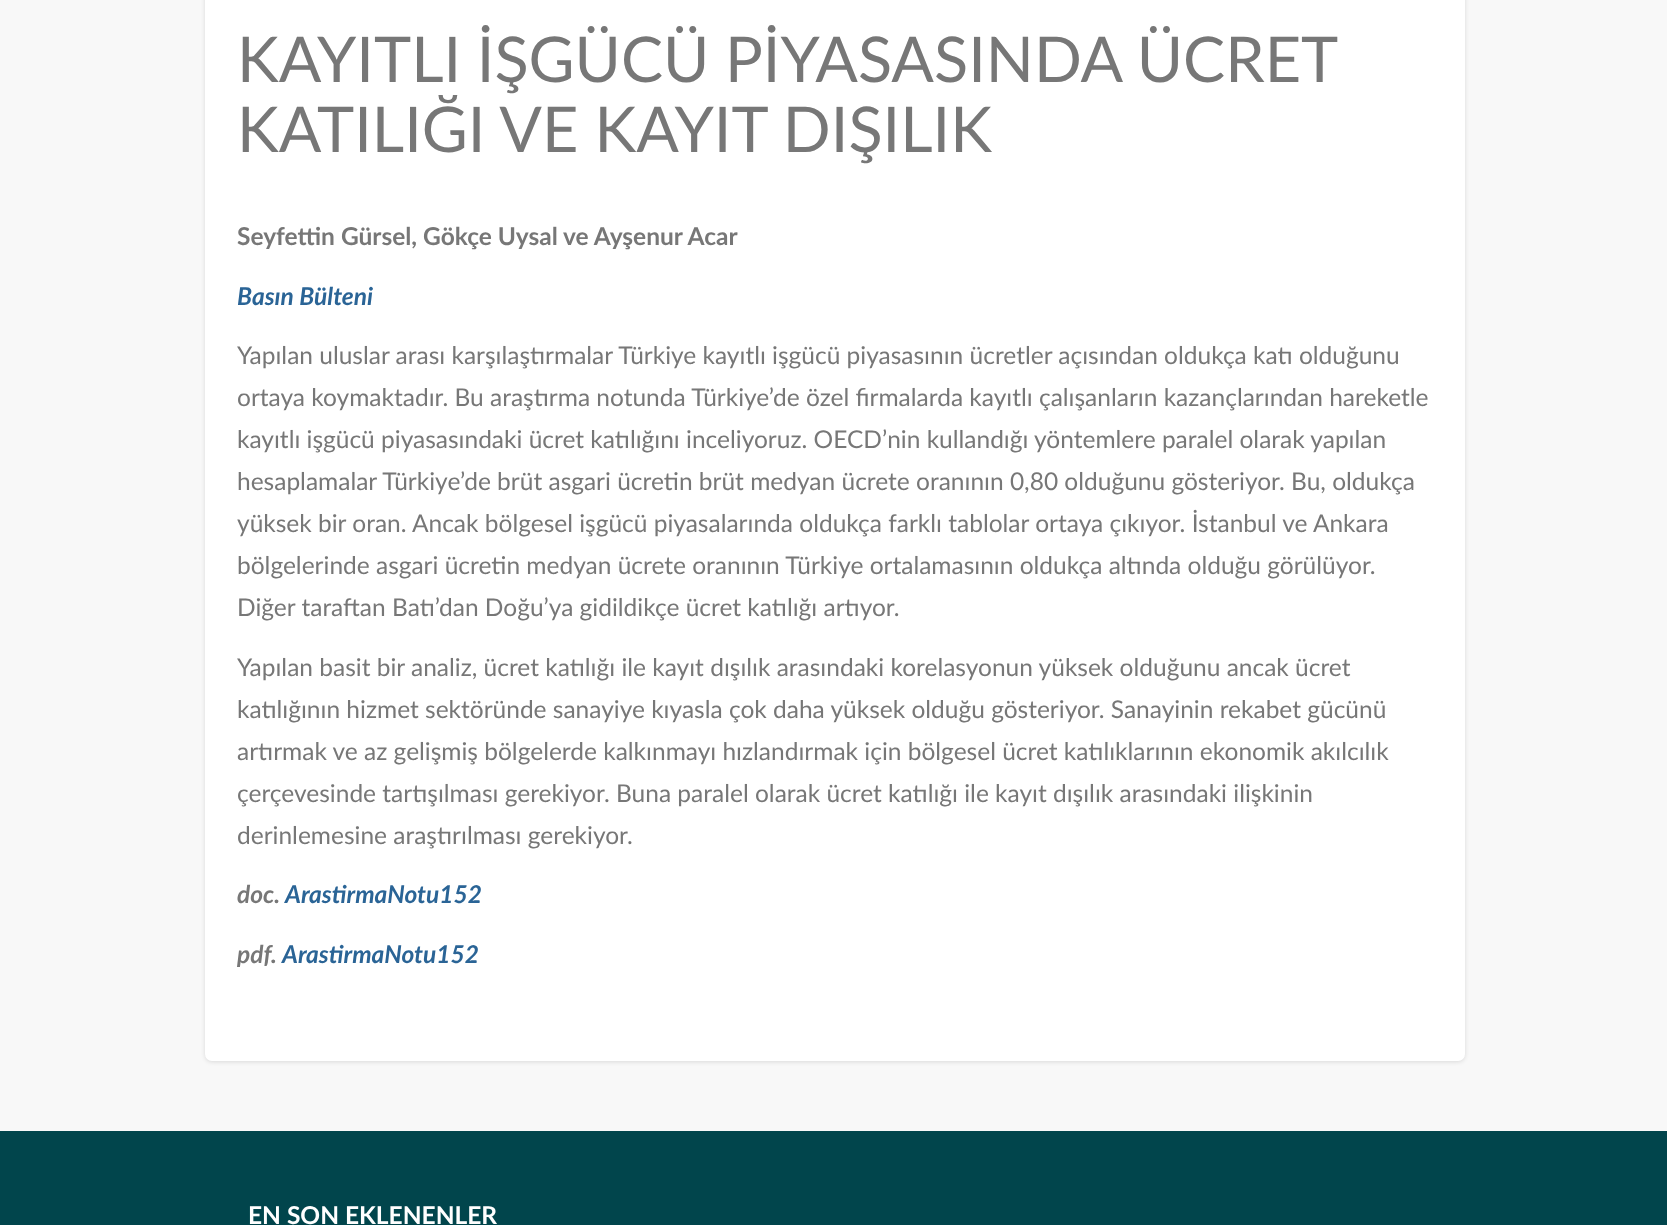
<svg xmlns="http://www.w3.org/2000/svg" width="1667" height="1225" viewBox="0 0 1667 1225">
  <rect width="100%" height="100%" fill="#f8f8f8"/>
  <rect x="205" y="-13" width="1260" height="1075" rx="7" fill="#0000001f" filter="blur(2px)"/>
  <rect x="205" y="-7" width="1260" height="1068" rx="7" fill="#fff"/>
  <path d="M0 1131h1667v94H0z" fill="#01454c"/>
  <g font-family="Lato" font-size="63" fill="#777">
    <text x="237" y="82" word-spacing="-0.5">KAYITLI İŞGÜCÜ PİYASASINDA ÜCRET</text>
    <text x="237" y="152">KATILIĞI VE KAYIT DIŞILIK</text>
  </g>
  <g font-family="Lato" font-size="24.5" font-weight="bold" fill="#777">
    <text x="237" y="245">Seyfettin Gürsel, Gökçe Uysal</text>
    <text x="563" y="245">ve Ayşenur Acar</text>
  </g>
  <text x="237" y="305" font-family="Lato" font-size="24.5" font-weight="bold" font-style="italic" fill="#2a6496">Basın Bülteni</text>
  <g font-family="Lato" font-size="24.5" fill="#777">
    <text x="237" y="364">Yapılan uluslar arası karşılaştırmalar Türkiye kayıtlı işgücü piyasasının ücretler açısından oldukça katı olduğunu</text>
    <text x="237" y="406">ortaya koymaktadır. Bu araştırma notunda Türkiye’de özel firmalarda kayıtlı çalışanların kazançlarından hareketle</text>
    <text x="237" y="448">kayıtlı işgücü piyasasındaki ücret katılığını inceliyoruz. OECD’nin kullandığı yöntemlere paralel olarak yapılan</text>
    <text x="237" y="490">hesaplamalar Türkiye’de brüt asgari ücretin brüt medyan ücrete oranının 0,80 olduğunu gösteriyor. Bu, oldukça</text>
    <text x="237" y="532">yüksek bir oran. Ancak bölgesel işgücü piyasalarında oldukça farklı tablolar ortaya çıkıyor. İstanbul ve Ankara</text>
    <text x="237" y="574">bölgelerinde asgari ücretin medyan ücrete oranının Türkiye ortalamasının oldukça altında olduğu görülüyor.</text>
    <text x="237" y="616">Diğer taraftan Batı’dan Doğu’ya gidildikçe ücret katılığı artıyor.</text>
    <text x="237" y="676">Yapılan basit bir analiz, ücret katılığı ile kayıt dışılık arasındaki korelasyonun yüksek olduğunu ancak ücret</text>
    <text x="237" y="718">katılığının hizmet sektöründe sanayiye kıyasla çok daha yüksek olduğu gösteriyor. Sanayinin rekabet gücünü</text>
    <text x="237" y="760">artırmak ve az gelişmiş bölgelerde kalkınmayı hızlandırmak için bölgesel ücret katılıklarının ekonomik akılcılık</text>
    <text x="237" y="802">çerçevesinde tartışılması gerekiyor. Buna paralel olarak ücret katılığı ile kayıt dışılık arasındaki ilişkinin</text>
    <text x="237" y="844">derinlemesine araştırılması gerekiyor.</text>
  </g>
  <text x="237" y="903" font-family="Lato" font-size="24.5" font-weight="bold" font-style="italic" fill="#777">doc.</text>
  <text x="285" y="903" font-family="Lato" font-size="24.5" font-weight="bold" font-style="italic" fill="#2a6496">ArastirmaNotu152</text>
  <text x="237" y="963" font-family="Lato" font-size="24.5" font-weight="bold" font-style="italic" fill="#777">pdf.</text>
  <text x="282" y="963" font-family="Lato" font-size="24.5" font-weight="bold" font-style="italic" fill="#2a6496">ArastirmaNotu152</text>
  <text x="248" y="1224" font-family="Lato" font-size="24.5" font-weight="bold" fill="#fff">EN SON EKLENENLER</text>
</svg>
